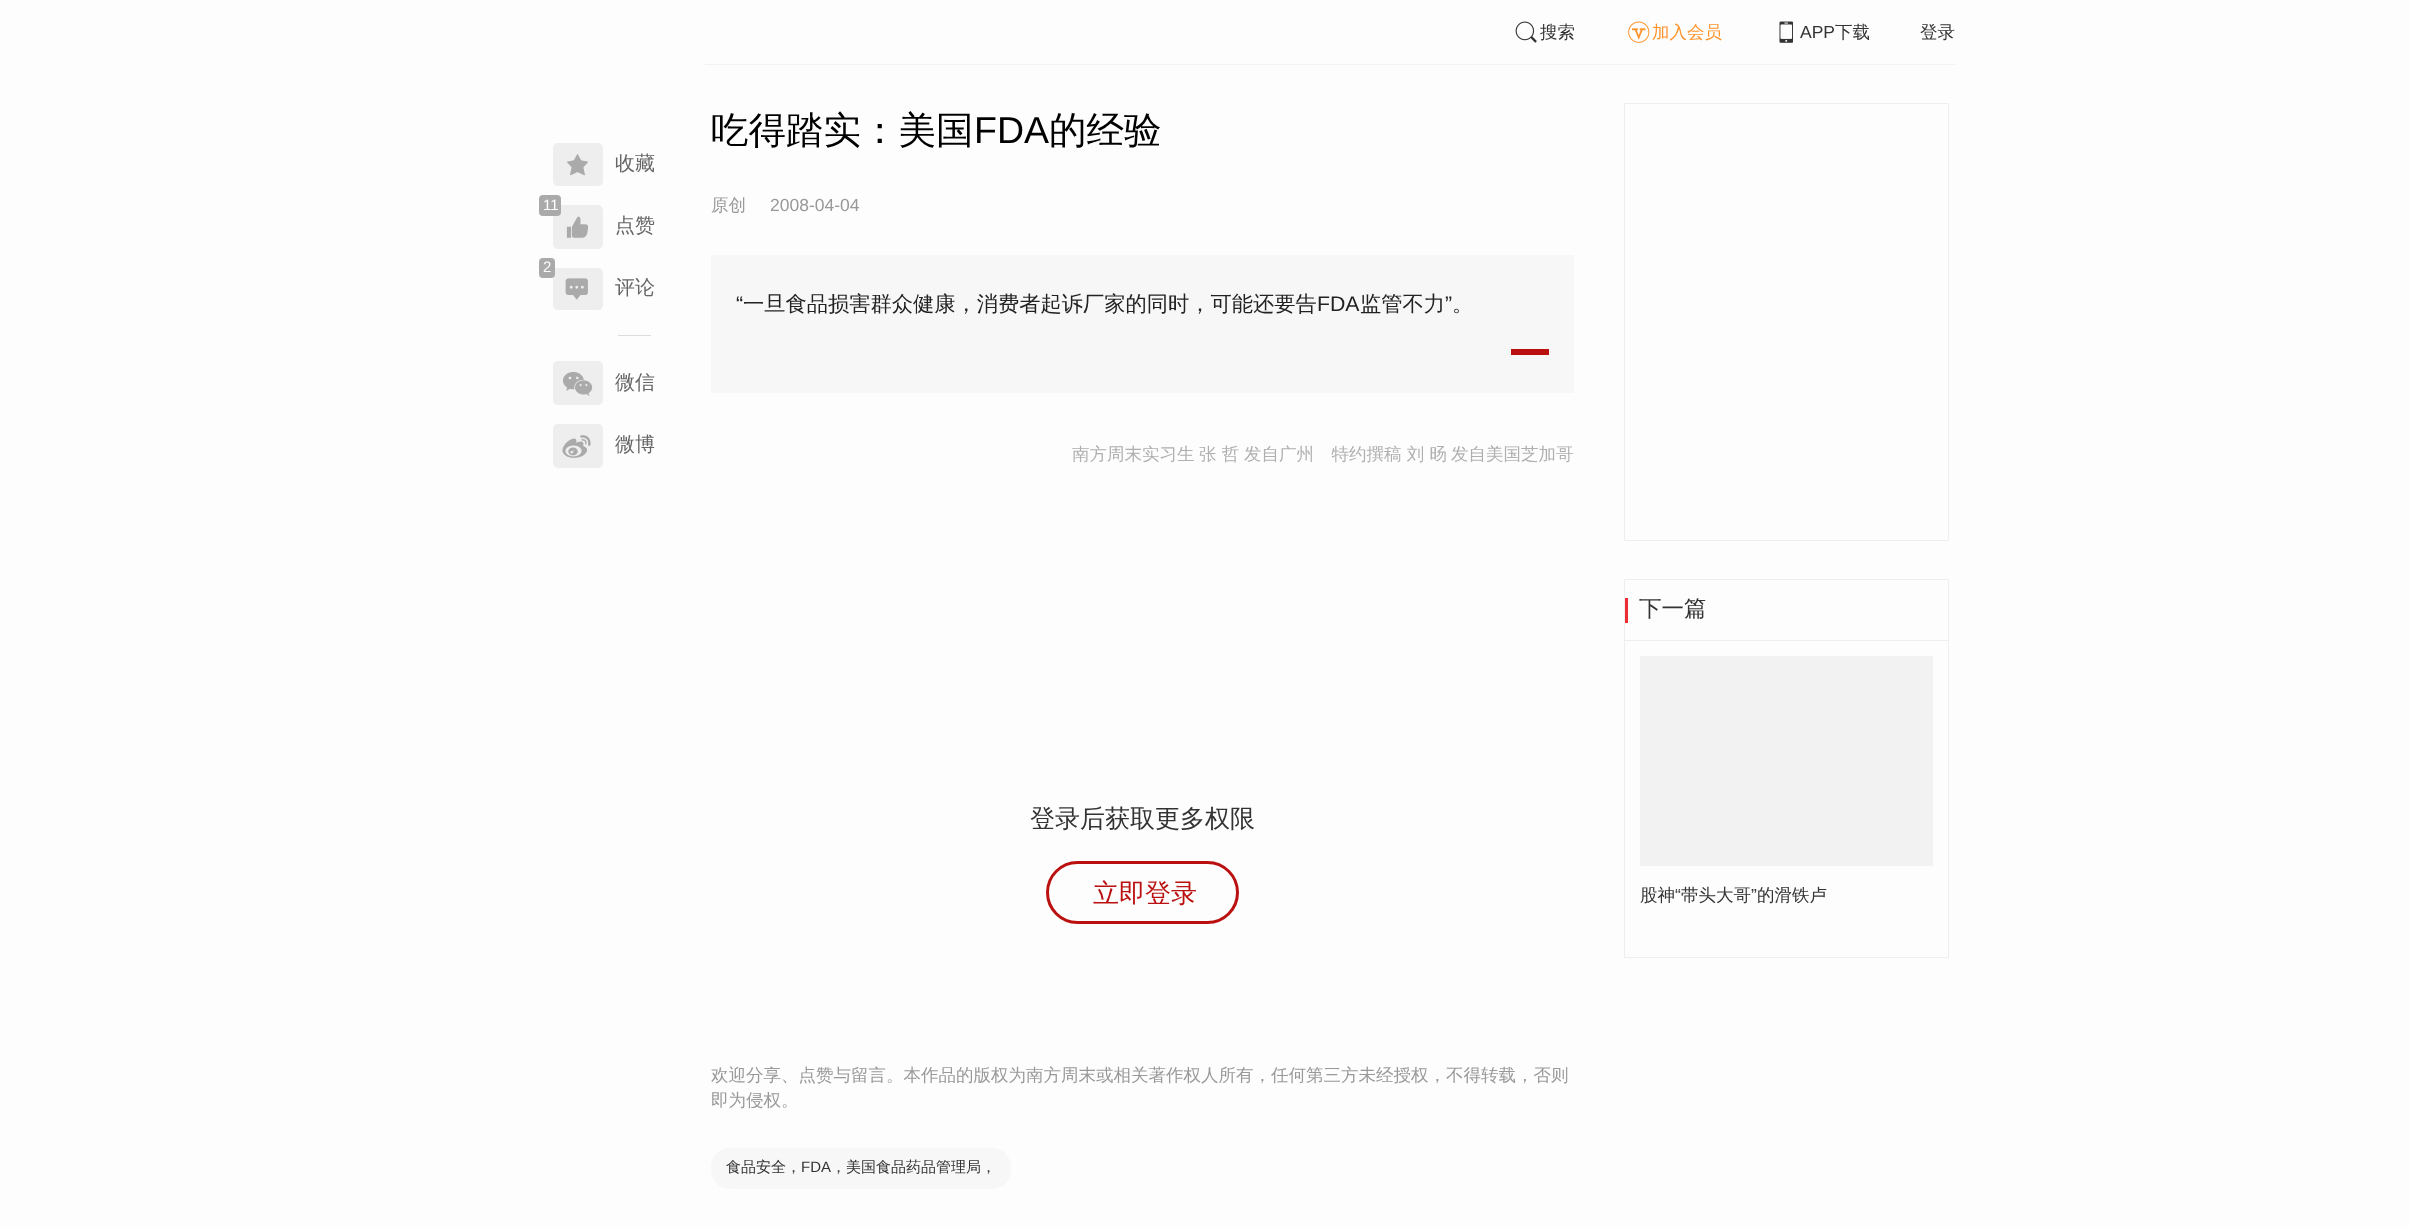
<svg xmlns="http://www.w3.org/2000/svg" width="2409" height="1228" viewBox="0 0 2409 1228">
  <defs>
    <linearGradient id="g1" gradientUnits="userSpaceOnUse" x1="1143" y1="748" x2="1143" y2="373"><stop offset="0" stop-color="#fff"/><stop offset="1" stop-color="#fff" stop-opacity="0"/></linearGradient>
  </defs>
  <rect width="100%" height="100%" fill="#fdfdfd"/>
  <rect x="553" y="143" width="50" height="43" rx="5" fill="#eee"/>
  <image x="567" y="154" width="21" height="22" href="img/1.png"/>
  <rect x="553" y="205" width="50" height="44" rx="5" fill="#eee"/>
  <rect x="539" y="195" width="22" height="21" rx="4" fill="#aaa"/>
  <image x="566" y="216" width="23" height="22" href="img/2.png"/>
  <rect x="553" y="268" width="50" height="42" rx="5" fill="#eee"/>
  <rect x="539" y="258" width="16" height="20" rx="4" fill="#aaa"/>
  <image x="565" y="278" width="23" height="22" href="img/3.png"/>
  <path d="M618 335h33v1H618z" fill="#ddd"/>
  <rect x="553" y="361" width="50" height="44" rx="5" fill="#eee"/>
  <image x="562" y="372" width="31" height="24" href="img/4.png"/>
  <rect x="553" y="424" width="50" height="44" rx="5" fill="#eee"/>
  <image x="562" y="435" width="29" height="23" href="img/5.png"/>
  <path d="M705 64h1250v1H705z" fill="#f2f2f2"/>
  <image x="1515" y="21" width="22" height="22" href="img/6.png"/>
  <image x="1628" y="21" width="22" height="22" href="img/7.png"/>
  <image x="1779" y="21" width="14" height="22" href="img/8.png"/>
  <path d="M711 255h863v138H711z" fill="#f7f7f7"/>
  <path d="M1511 349h38v6H1511z" fill="#ba1010"/>
  <rect x="1047.5" y="862.5" width="190" height="60" rx="30" fill="none" stroke="#ba1010" stroke-width="3"/>
  <rect x="711" y="1148" width="300" height="41" rx="19" fill="#f7f7f7"/>
  <path d="M1624.5 103.5h324v437H1624.5z" fill="none" stroke="#eee"/>
  <path d="M1624.5 579.5h324v378H1624.5z" fill="none" stroke="#eee"/>
  <path d="M1625 640h323v1H1625z" fill="#eee"/>
  <path d="M1625 598h3v25H1625z" fill="#ee2c34"/>
  <path d="M1640 656h293v210H1640z" fill="#f2f2f2"/>
  <text x="615" y="170" font-family="WenQuanYi Zen Hei" font-size="20" font-weight="500" fill="#666">收藏</text>
  <text x="543" y="210" font-family="Liberation Sans" font-size="15" fill="#fff">11</text>
  <text x="615" y="232" font-family="WenQuanYi Zen Hei" font-size="20" font-weight="500" fill="#666">点赞</text>
  <text x="543" y="272" font-family="Liberation Sans" font-size="15" fill="#fff">2</text>
  <g font-family="WenQuanYi Zen Hei" font-size="20" font-weight="500" fill="#666">
    <text x="615" y="294">评论</text>
    <text x="615" y="389">微信</text>
    <text x="615" y="451">微博</text>
  </g>
  <text x="1540" y="38" font-family="WenQuanYi Zen Hei" font-size="17.5" font-weight="500" fill="#333">搜索</text>
  <text x="1652" y="38" font-family="WenQuanYi Zen Hei" font-size="17.5" font-weight="500" fill="#ff932c">加入会员</text>
  <text x="1800" y="38" font-family="Liberation Sans" font-size="17.5" fill="#333">APP</text>
  <g font-family="WenQuanYi Zen Hei" font-size="17.5" font-weight="500" fill="#333">
    <text x="1835" y="38">下载</text>
    <text x="1920" y="38">登录</text>
  </g>
  <text x="711" y="143" font-family="WenQuanYi Zen Hei" font-size="37.5" font-weight="500" fill="#000">吃得踏实：美国</text>
  <text x="974" y="143" font-family="Liberation Sans" font-size="37.5" fill="#000">FDA</text>
  <text x="1049" y="143" font-family="WenQuanYi Zen Hei" font-size="37.5" font-weight="500" fill="#000">的经验</text>
  <text x="711" y="211" font-family="WenQuanYi Zen Hei" font-size="17.5" font-weight="500" fill="#999">原创</text>
  <text x="770" y="211" font-family="Liberation Sans" font-size="17.5" fill="#999">2008-04-04</text>
  <text x="736" y="311" font-family="Liberation Sans" font-size="21.25" fill="#222">“</text>
  <text x="743" y="311" font-family="WenQuanYi Zen Hei" font-size="21.25" font-weight="500" fill="#222">一旦食品损害群众健康，消费者起诉厂家的同时，可能还要告</text>
  <text x="1317" y="311" font-family="Liberation Sans" font-size="21.25" fill="#222">FDA</text>
  <text x="1360" y="311" font-family="WenQuanYi Zen Hei" font-size="21.25" font-weight="500" fill="#222">监管不力</text>
  <text x="1445" y="311" font-family="Liberation Sans" font-size="21.25" fill="#222">”</text>
  <text x="1452" y="311" font-family="WenQuanYi Zen Hei" font-size="21.25" font-weight="500" fill="#222">。</text>
  <g font-family="WenQuanYi Zen Hei" font-size="17.5" font-weight="500" fill="#999">
    <text x="1072" y="460">南方周末实习生</text>
    <text x="1199" y="460">张 哲</text>
    <text x="1244" y="460">发自广州　特约撰稿 刘 旸</text>
    <text x="1451" y="460">发自美国芝加哥</text>
  </g>
  <path d="M1072 445h501v18H1072z" fill="url(#g1)"/>
  <text x="1030" y="827" font-family="WenQuanYi Zen Hei" font-size="25" font-weight="500" fill="#333">登录后获取更多权限</text>
  <text x="1093" y="902" font-family="WenQuanYi Zen Hei" font-size="26" font-weight="500" fill="#ba1010">立即登录</text>
  <g font-family="WenQuanYi Zen Hei" font-size="17.5" font-weight="500" fill="#999">
    <text x="711" y="1081">欢迎分享、点赞与留言。本作品的版权为南方周末或相关著作权人所有，任何第三方未经授权，不得转载，否则</text>
    <text x="711" y="1106">即为侵权。</text>
  </g>
  <text x="726" y="1172" font-family="WenQuanYi Zen Hei" font-size="15" font-weight="500" fill="#333">食品安全，</text>
  <text x="801" y="1172" font-family="Liberation Sans" font-size="15" fill="#333">FDA</text>
  <text x="831" y="1172" font-family="WenQuanYi Zen Hei" font-size="15" font-weight="500" fill="#333">，美国食品药品管理局，</text>
  <text x="1639" y="616" font-family="WenQuanYi Zen Hei" font-size="22.5" font-weight="500" fill="#333">下一篇</text>
  <text x="1640" y="901" font-family="WenQuanYi Zen Hei" font-size="17.5" font-weight="500" fill="#333">股神</text>
  <text x="1675" y="901" font-family="Liberation Sans" font-size="17.5" fill="#333">“</text>
  <text x="1681" y="901" font-family="WenQuanYi Zen Hei" font-size="17.5" font-weight="500" fill="#333">带头大哥</text>
  <text x="1751" y="901" font-family="Liberation Sans" font-size="17.5" fill="#333">”</text>
  <text x="1757" y="901" font-family="WenQuanYi Zen Hei" font-size="17.5" font-weight="500" fill="#333">的滑铁卢</text>
</svg>
